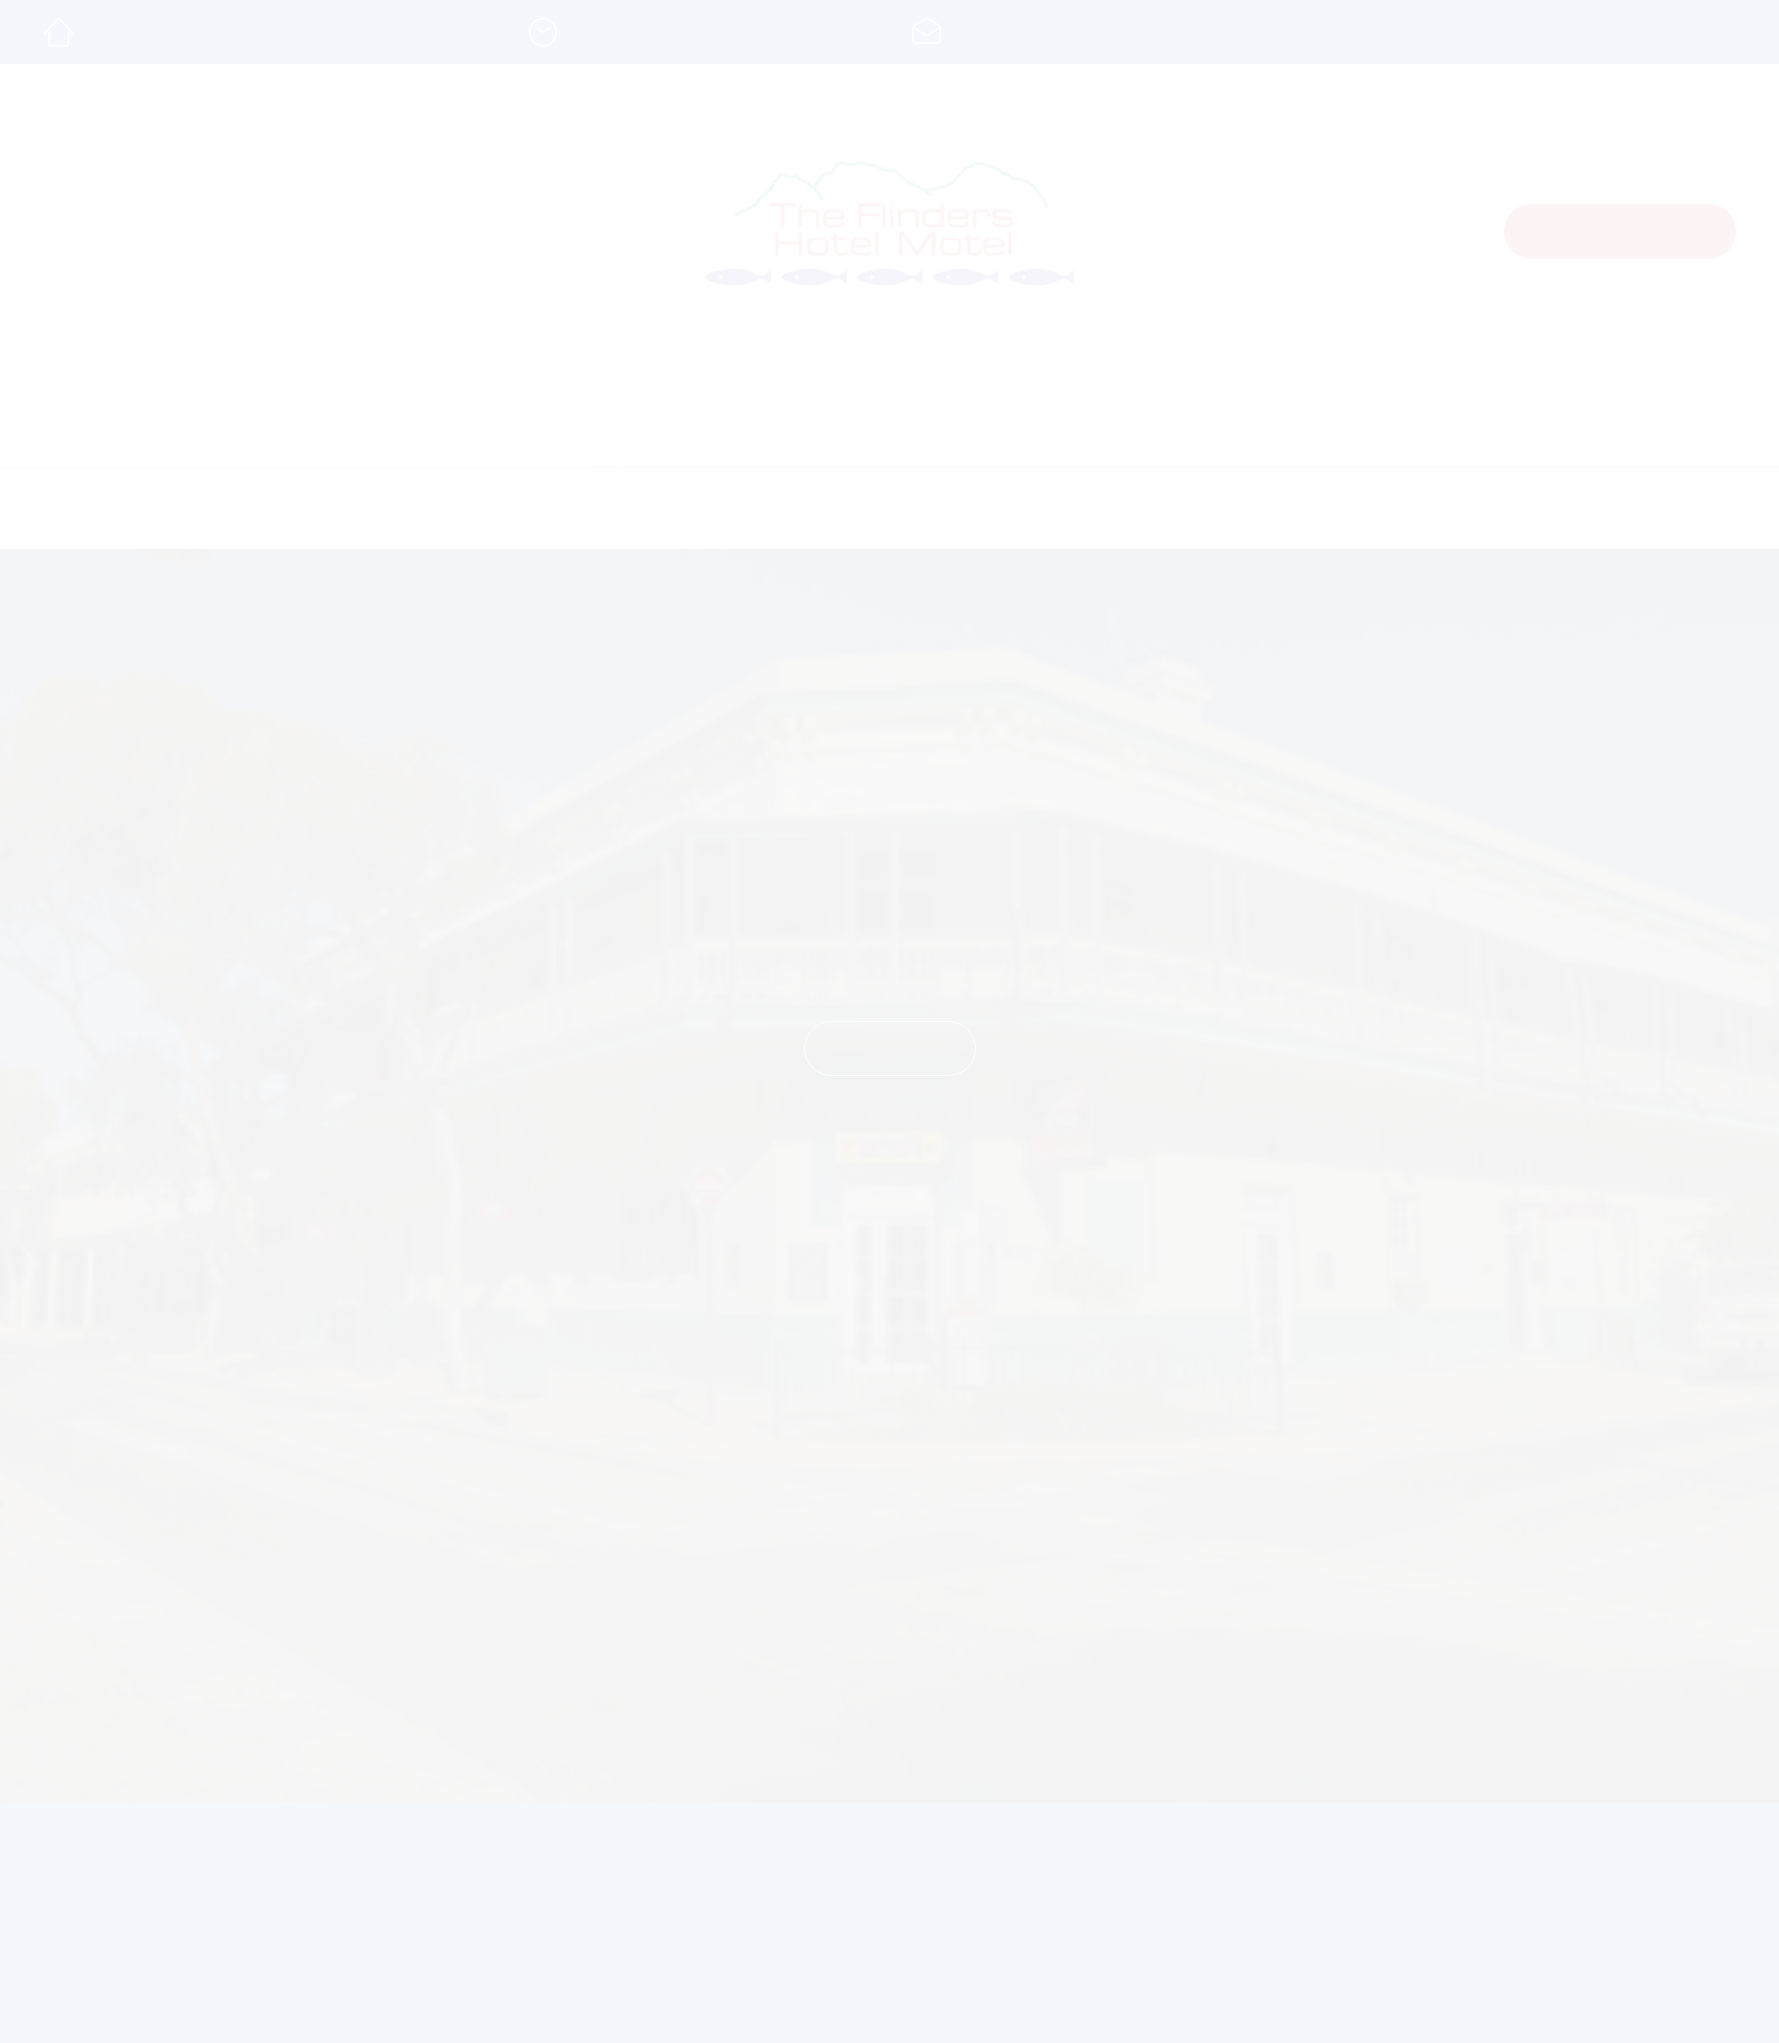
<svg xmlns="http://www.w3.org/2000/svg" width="1779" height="2043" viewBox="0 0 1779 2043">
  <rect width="100%" height="100%" fill="#fff"/>
  <path d="M0 0h1779v64H0z" fill="#f4f8fc"/>
  <image x="43" y="17" width="31" height="30" href="img/1.png"/>
  <image x="528" y="18" width="30" height="29" href="img/2.png"/>
  <image x="912" y="17" width="29" height="27" href="img/3.png"/>
  <image x="705" y="160" width="370" height="127" href="img/4.png"/>
  <rect x="1504" y="204" width="232" height="55" rx="27.5" fill="#fdf5f5"/>
  <image x="0" y="467" width="1779" height="1337" href="img/5.png"/>
  <path d="M0 468h1779v81H0z" fill="#fff"/>
  <rect x="804.5" y="1021.5" width="171" height="54" rx="27" fill="none" stroke="#fff"/>
  <path d="M0 1804h1779v239H0z" fill="#f4f8fc"/>
</svg>
